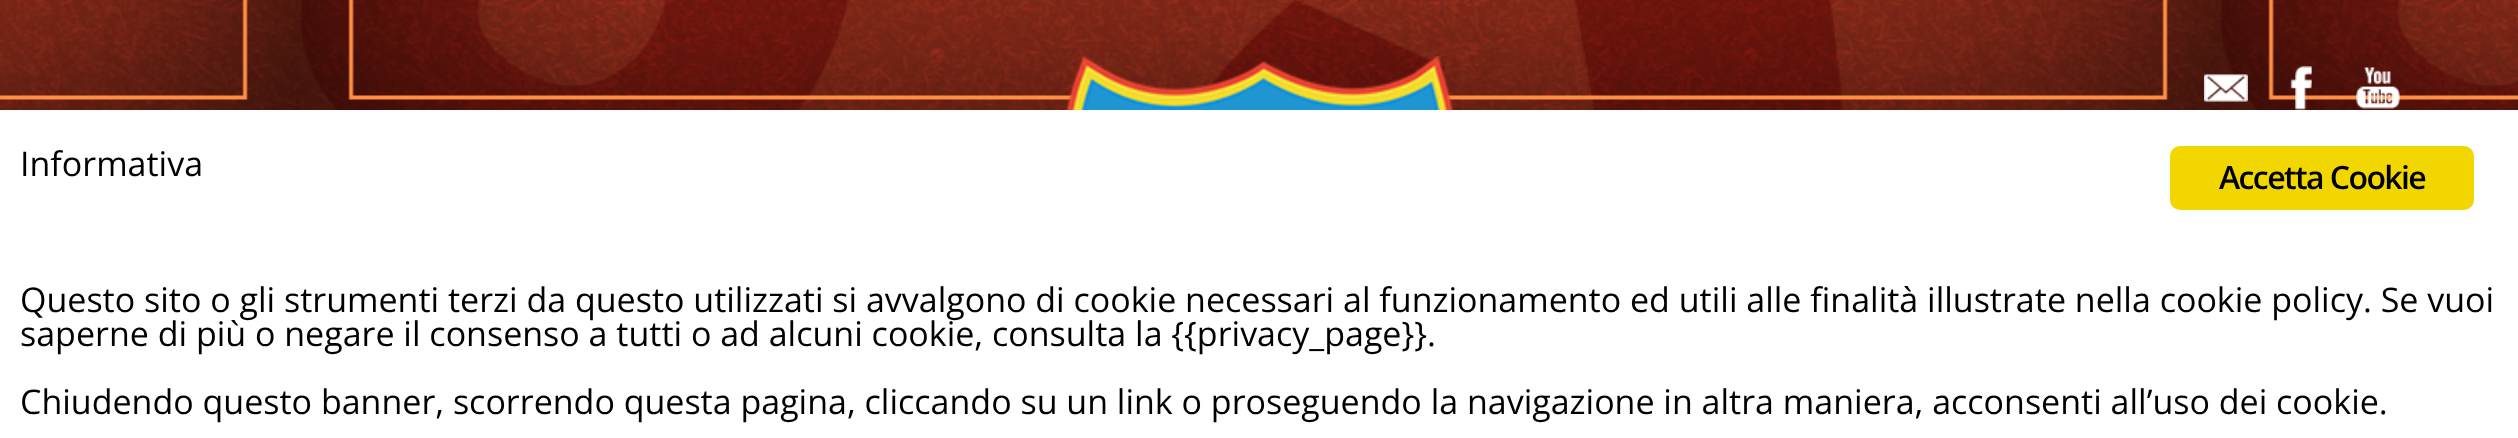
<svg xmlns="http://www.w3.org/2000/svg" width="2518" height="438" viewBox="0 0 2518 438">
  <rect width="100%" height="100%" fill="#fff"/>
  <image x="0" y="0" width="2518" height="110" href="img/1.png"/>
  <image x="1065" y="56" width="390" height="54" href="img/2.png"/>
  <image x="2204" y="74" width="44" height="28" href="img/3.png"/>
  <image x="2290" y="66" width="22" height="44" href="img/4.png"/>
  <image x="2356" y="67" width="44" height="42" href="img/5.png"/>
  <rect x="2170" y="146" width="304" height="64" rx="10" fill="#f1d600"/>
  <g font-family="Open Sans" font-size="34" fill="#000">
    <text x="20" y="176">Informativa</text>
    <text x="20" y="312">Questo sito o gli strumenti terzi da questo utilizzati si avvalgono di cookie necessari al funzionamento ed utili alle finalità illustrate nella cookie policy. Se vuoi</text>
    <text x="20" y="346">saperne di più o negare il consenso a tutti o ad alcuni cookie, consulta la {{privacy_page}}.</text>
    <text x="20" y="414">Chiudendo questo banner, scorrendo questa pagina, cliccando su un link o proseguendo la navigazione in altra maniera, acconsenti all’uso dei cookie.</text>
  </g>
  <text x="2219" y="189" font-family="Open Sans" font-size="32" font-weight="600" letter-spacing="-1.6" fill="#000">Accetta Cookie</text>
</svg>
